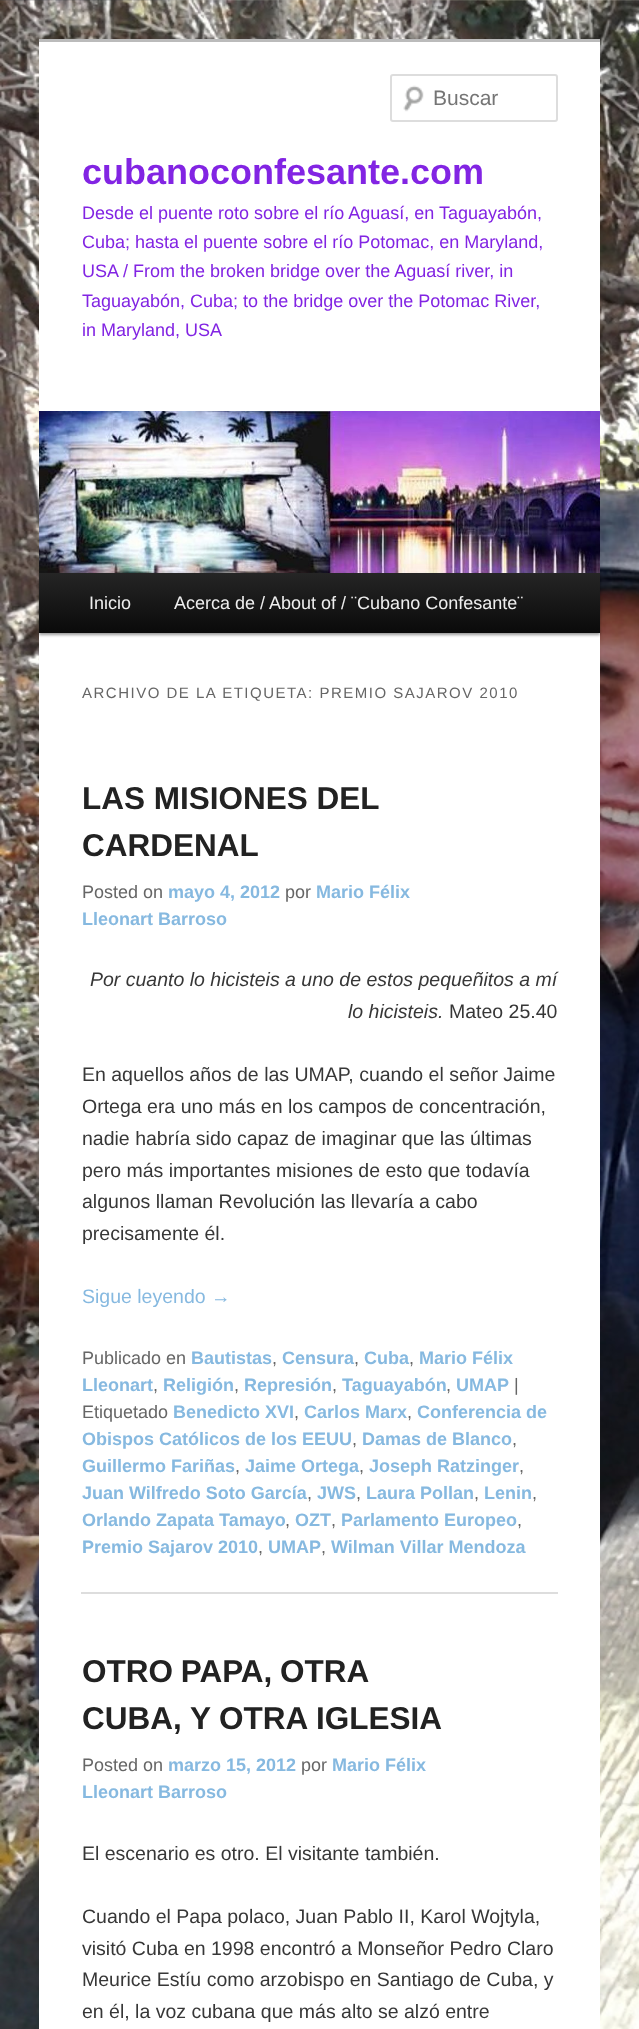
<svg xmlns="http://www.w3.org/2000/svg" width="639" height="2029" viewBox="0 0 639 2029">
  <defs>
    <linearGradient id="g1" gradientUnits="userSpaceOnUse" x1="320" y1="573" x2="320" y2="633"><stop offset="0" stop-color="#252525"/><stop offset="1" stop-color="#0a0a0a"/></linearGradient>
  </defs>
  <rect width="100%" height="100%" fill="#fff"/>
  <image x="0" y="0" width="639" height="2029" href="img/1.png"/>
  <path d="M39 42h561v1987H39z" fill="#fff"/>
  <path d="M39 39h561v3H39z" fill="#bbb"/>
  <image x="403" y="85" width="21" height="27" href="img/2.png"/>
  <rect x="391" y="75" width="166" height="46" rx="2" fill="none" stroke="#ddd" stroke-width="2"/>
  <path d="M39 575h561v60H39z" fill="#00000066" filter="blur(1.5px)"/>
  <image x="39" y="411" width="561" height="162" href="img/3.png"/>
  <path d="M39 573h561v60H39z" fill="url(#g1)"/>
  <path d="M81 1592h477v2H81z" fill="#ddd"/>
  <text x="433" y="105" font-family="Liberation Sans" font-size="21" fill="#757575">Buscar</text>
  <text x="82" y="184" font-family="Liberation Sans" font-size="36" font-weight="bold" fill="#8224e3">cubanoconfesante.com</text>
  <g font-family="Liberation Sans" font-size="18" fill="#8224e3">
    <text x="82" y="219">Desde el puente roto sobre el río Aguasí, en Taguayabón,</text>
    <text x="82" y="248">Cuba; hasta el puente sobre el río Potomac, en Maryland,</text>
    <text x="82" y="277">USA / From the broken bridge over the Aguasí river, in</text>
    <text x="82" y="307">Taguayabón, Cuba; to the bridge over the Potomac River,</text>
    <text x="82" y="336">in Maryland, USA</text>
  </g>
  <g font-family="Liberation Sans" font-size="18" fill="#eee">
    <text x="89" y="609">Inicio</text>
    <text x="174" y="609">Acerca de / About of / ¨Cubano Confesante¨</text>
  </g>
  <text x="82" y="698" font-family="Liberation Sans" font-size="15" letter-spacing="1.5" fill="#666">ARCHIVO DE LA ETIQUETA: PREMIO SAJAROV 2010</text>
  <g font-family="Liberation Sans" font-size="31.5" font-weight="bold" fill="#222">
    <text x="82" y="809">LAS MISIONES DEL</text>
    <text x="82" y="856">CARDENAL</text>
  </g>
  <text x="82" y="898" font-family="Liberation Sans" font-size="18" fill="#666">Posted on</text>
  <text x="168" y="898" font-family="Liberation Sans" font-size="18" font-weight="bold" fill="#86b9e0">mayo 4, 2012</text>
  <text x="285" y="898" font-family="Liberation Sans" font-size="18" fill="#666">por</text>
  <g font-family="Liberation Sans" font-size="18" font-weight="bold" fill="#86b9e0">
    <text x="316" y="898">Mario Félix</text>
    <text x="82" y="925">Lleonart Barroso</text>
  </g>
  <g font-family="Liberation Sans" font-size="19.5" font-style="italic" fill="#373737">
    <text x="90" y="986">Por cuanto lo hicisteis a uno de estos pequeñitos a mí</text>
    <text x="348" y="1018">lo hicisteis.</text>
  </g>
  <g font-family="Liberation Sans" font-size="19.5" fill="#373737">
    <text x="449" y="1018">Mateo 25.40</text>
    <text x="82" y="1081">En aquellos años de las UMAP, cuando el señor Jaime</text>
    <text x="82" y="1113">Ortega era uno más en los campos de concentración,</text>
    <text x="82" y="1145">nadie habría sido capaz de imaginar que las últimas</text>
    <text x="82" y="1177">pero más importantes misiones de esto que todavía</text>
    <text x="82" y="1208">algunos llaman Revolución las llevaría a cabo</text>
    <text x="82" y="1240">precisamente él.</text>
  </g>
  <text x="82" y="1303" font-family="Liberation Sans" font-size="19.5" fill="#86b9e0">Sigue leyendo →</text>
  <text x="82" y="1364" font-family="Liberation Sans" font-size="18" fill="#666">Publicado en</text>
  <text x="191" y="1364" font-family="Liberation Sans" font-size="18" font-weight="bold" fill="#86b9e0">Bautistas</text>
  <text x="272" y="1364" font-family="Liberation Sans" font-size="18" fill="#666">,</text>
  <text x="282" y="1364" font-family="Liberation Sans" font-size="18" font-weight="bold" fill="#86b9e0">Censura</text>
  <text x="354" y="1364" font-family="Liberation Sans" font-size="18" fill="#666">,</text>
  <text x="364" y="1364" font-family="Liberation Sans" font-size="18" font-weight="bold" fill="#86b9e0">Cuba</text>
  <text x="409" y="1364" font-family="Liberation Sans" font-size="18" fill="#666">,</text>
  <g font-family="Liberation Sans" font-size="18" font-weight="bold" fill="#86b9e0">
    <text x="419" y="1364">Mario Félix</text>
    <text x="82" y="1391">Lleonart</text>
  </g>
  <text x="153" y="1391" font-family="Liberation Sans" font-size="18" fill="#666">,</text>
  <text x="163" y="1391" font-family="Liberation Sans" font-size="18" font-weight="bold" fill="#86b9e0">Religión</text>
  <text x="234" y="1391" font-family="Liberation Sans" font-size="18" fill="#666">,</text>
  <text x="244" y="1391" font-family="Liberation Sans" font-size="18" font-weight="bold" fill="#86b9e0">Represión</text>
  <text x="332" y="1391" font-family="Liberation Sans" font-size="18" fill="#666">,</text>
  <text x="342" y="1391" font-family="Liberation Sans" font-size="18" font-weight="bold" fill="#86b9e0">Taguayabón</text>
  <text x="446" y="1391" font-family="Liberation Sans" font-size="18" fill="#666">,</text>
  <text x="456" y="1391" font-family="Liberation Sans" font-size="18" font-weight="bold" fill="#86b9e0">UMAP</text>
  <g font-family="Liberation Sans" font-size="18" fill="#666">
    <text x="514" y="1391">|</text>
    <text x="82" y="1418">Etiquetado</text>
  </g>
  <text x="173" y="1418" font-family="Liberation Sans" font-size="18" font-weight="bold" fill="#86b9e0">Benedicto XVI</text>
  <text x="294" y="1418" font-family="Liberation Sans" font-size="18" fill="#666">,</text>
  <text x="304" y="1418" font-family="Liberation Sans" font-size="18" font-weight="bold" fill="#86b9e0">Carlos Marx</text>
  <text x="407" y="1418" font-family="Liberation Sans" font-size="18" fill="#666">,</text>
  <g font-family="Liberation Sans" font-size="18" font-weight="bold" fill="#86b9e0">
    <text x="417" y="1418">Conferencia de</text>
    <text x="82" y="1445">Obispos Católicos de los EEUU</text>
  </g>
  <text x="352" y="1445" font-family="Liberation Sans" font-size="18" fill="#666">,</text>
  <text x="362" y="1445" font-family="Liberation Sans" font-size="18" font-weight="bold" fill="#86b9e0">Damas de Blanco</text>
  <text x="512" y="1445" font-family="Liberation Sans" font-size="18" fill="#666">,</text>
  <text x="82" y="1472" font-family="Liberation Sans" font-size="18" font-weight="bold" fill="#86b9e0">Guillermo Fariñas</text>
  <text x="235" y="1472" font-family="Liberation Sans" font-size="18" fill="#666">,</text>
  <text x="245" y="1472" font-family="Liberation Sans" font-size="18" font-weight="bold" fill="#86b9e0">Jaime Ortega</text>
  <text x="359" y="1472" font-family="Liberation Sans" font-size="18" fill="#666">,</text>
  <text x="369" y="1472" font-family="Liberation Sans" font-size="18" font-weight="bold" fill="#86b9e0">Joseph Ratzinger</text>
  <text x="519" y="1472" font-family="Liberation Sans" font-size="18" fill="#666">,</text>
  <text x="82" y="1499" font-family="Liberation Sans" font-size="18" font-weight="bold" fill="#86b9e0">Juan Wilfredo Soto García</text>
  <text x="307" y="1499" font-family="Liberation Sans" font-size="18" fill="#666">,</text>
  <text x="317" y="1499" font-family="Liberation Sans" font-size="18" font-weight="bold" fill="#86b9e0">JWS</text>
  <text x="356" y="1499" font-family="Liberation Sans" font-size="18" fill="#666">,</text>
  <text x="366" y="1499" font-family="Liberation Sans" font-size="18" font-weight="bold" fill="#86b9e0">Laura Pollan</text>
  <text x="474" y="1499" font-family="Liberation Sans" font-size="18" fill="#666">,</text>
  <text x="484" y="1499" font-family="Liberation Sans" font-size="18" font-weight="bold" fill="#86b9e0">Lenin</text>
  <text x="532" y="1499" font-family="Liberation Sans" font-size="18" fill="#666">,</text>
  <text x="82" y="1526" font-family="Liberation Sans" font-size="18" font-weight="bold" fill="#86b9e0">Orlando Zapata Tamayo</text>
  <text x="285" y="1526" font-family="Liberation Sans" font-size="18" fill="#666">,</text>
  <text x="295" y="1526" font-family="Liberation Sans" font-size="18" font-weight="bold" fill="#86b9e0">OZT</text>
  <text x="331" y="1526" font-family="Liberation Sans" font-size="18" fill="#666">,</text>
  <text x="341" y="1526" font-family="Liberation Sans" font-size="18" font-weight="bold" fill="#86b9e0">Parlamento Europeo</text>
  <text x="517" y="1526" font-family="Liberation Sans" font-size="18" fill="#666">,</text>
  <text x="82" y="1553" font-family="Liberation Sans" font-size="18" font-weight="bold" fill="#86b9e0">Premio Sajarov 2010</text>
  <text x="258" y="1553" font-family="Liberation Sans" font-size="18" fill="#666">,</text>
  <text x="268" y="1553" font-family="Liberation Sans" font-size="18" font-weight="bold" fill="#86b9e0">UMAP</text>
  <text x="321" y="1553" font-family="Liberation Sans" font-size="18" fill="#666">,</text>
  <text x="331" y="1553" font-family="Liberation Sans" font-size="18" font-weight="bold" fill="#86b9e0">Wilman Villar Mendoza</text>
  <g font-family="Liberation Sans" font-size="31.5" font-weight="bold" fill="#222">
    <text x="82" y="1682" word-spacing="-1">OTRO PAPA, OTRA</text>
    <text x="82" y="1729">CUBA, Y OTRA IGLESIA</text>
  </g>
  <text x="82" y="1771" font-family="Liberation Sans" font-size="18" fill="#666">Posted on</text>
  <text x="168" y="1771" font-family="Liberation Sans" font-size="18" font-weight="bold" fill="#86b9e0">marzo 15, 2012</text>
  <text x="301" y="1771" font-family="Liberation Sans" font-size="18" fill="#666">por</text>
  <g font-family="Liberation Sans" font-size="18" font-weight="bold" fill="#86b9e0">
    <text x="332" y="1771">Mario Félix</text>
    <text x="82" y="1798">Lleonart Barroso</text>
  </g>
  <g font-family="Liberation Sans" font-size="19.5" fill="#373737">
    <text x="82" y="1860">El escenario es otro. El visitante también.</text>
    <text x="82" y="1923">Cuando el Papa polaco, Juan Pablo II, Karol Wojtyla,</text>
    <text x="82" y="1955">visitó Cuba en 1998 encontró a Monseñor Pedro Claro</text>
    <text x="82" y="1986">Meurice Estíu como arzobispo en Santiago de Cuba, y</text>
    <text x="82" y="2018">en él, la voz cubana que más alto se alzó entre</text>
  </g>
</svg>
